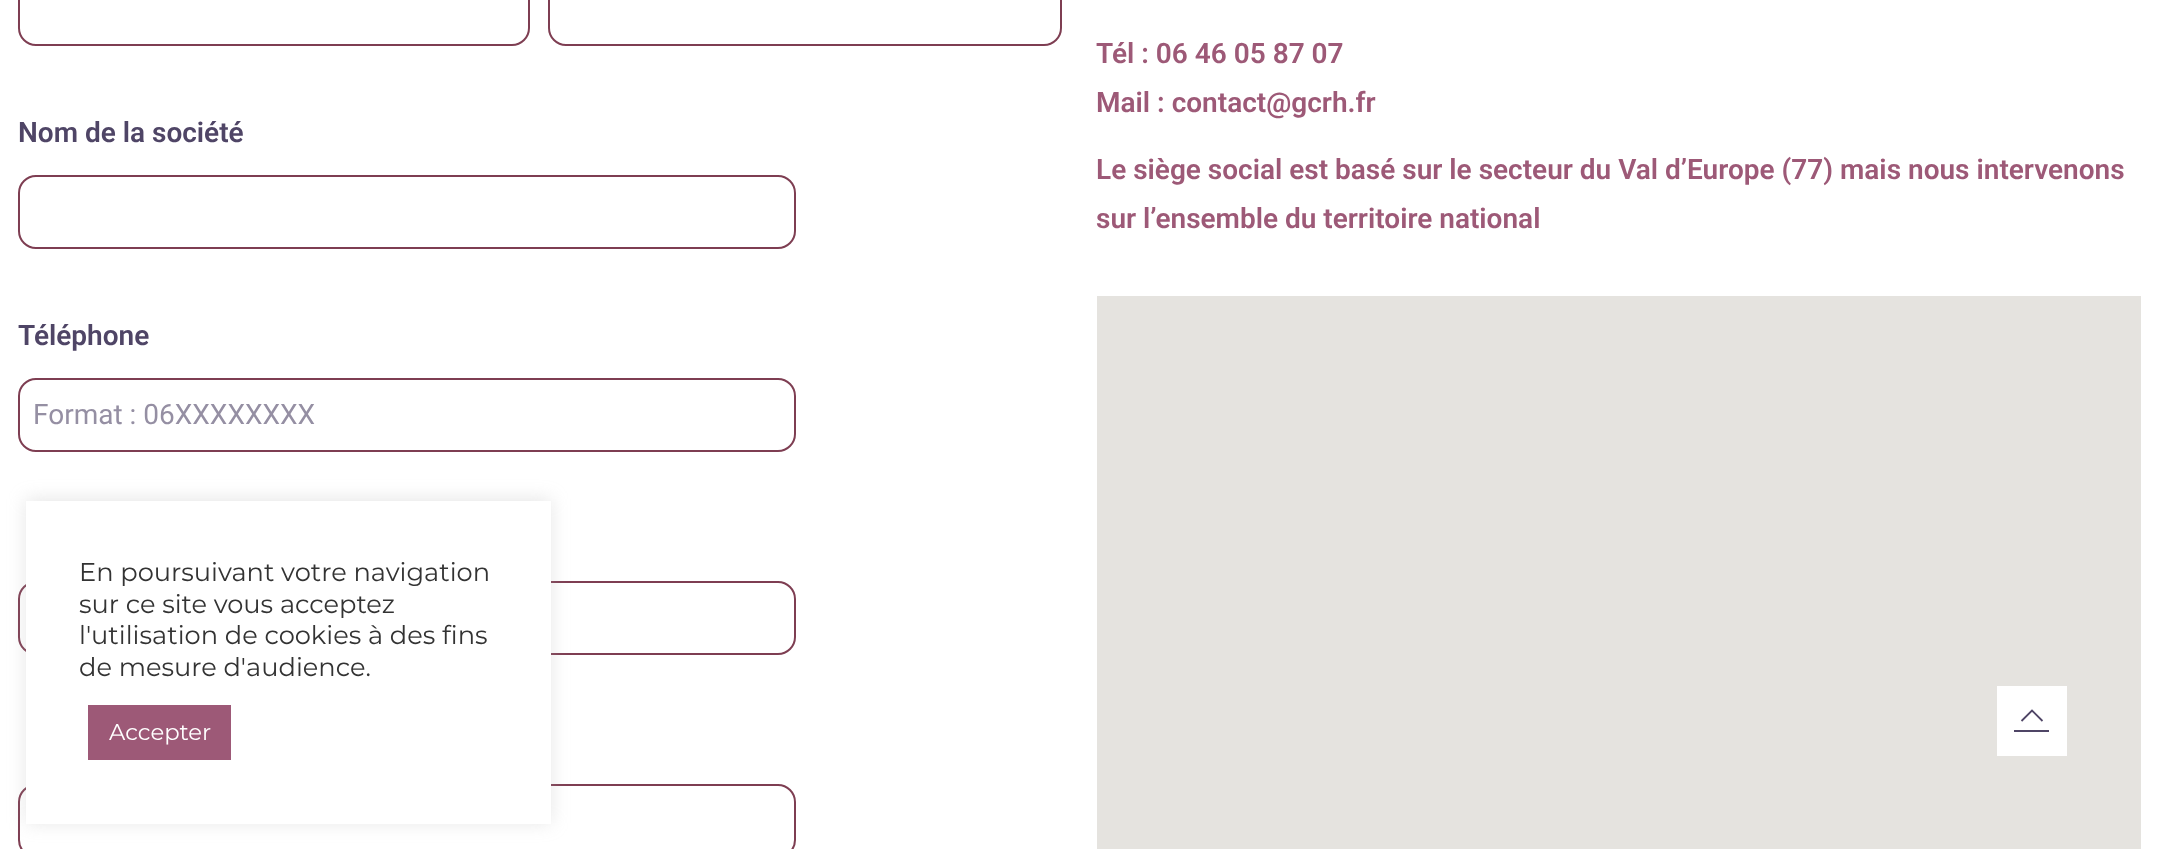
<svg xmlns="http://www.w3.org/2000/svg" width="2157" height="849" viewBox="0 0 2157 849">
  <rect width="100%" height="100%" fill="#fff"/>
  <rect x="19" y="-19" width="510" height="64" rx="17" fill="none" stroke="#7e3e52" stroke-width="2"/>
  <rect x="549" y="-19" width="512" height="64" rx="17" fill="none" stroke="#7e3e52" stroke-width="2"/>
  <rect x="19" y="176" width="776" height="72" rx="17" fill="none" stroke="#7e3e52" stroke-width="2"/>
  <rect x="19" y="379" width="776" height="72" rx="17" fill="none" stroke="#7e3e52" stroke-width="2"/>
  <rect x="19" y="582" width="776" height="72" rx="17" fill="none" stroke="#7e3e52" stroke-width="2"/>
  <rect x="19" y="785" width="776" height="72" rx="17" fill="none" stroke="#7e3e52" stroke-width="2"/>
  <path d="M1097 296h1044v553H1097z" fill="#e5e3df"/>
  <path d="M1997 686h70v70H1997z" fill="#fff"/>
  <path d="M2021.5 721L2032 710.5L2042.5 721" fill="none" stroke="#4f4566" stroke-width="1.8"/>
  <path d="M2014 730h35v2H2014z" fill="#4f4566"/>
  <path d="M26 499h525v324H26z" fill="#acabab4d" filter="blur(9px)"/>
  <path d="M26 501h525v323H26z" fill="#fff"/>
  <path d="M88 705h143v55H88z" fill="#9d5977"/>
  <g font-family="Roboto" font-size="28" font-weight="600" fill="#4f4566">
    <text x="18" y="142">Nom de la société</text>
    <text x="18" y="345">Téléphone</text>
  </g>
  <text x="33" y="424" font-family="Roboto" font-size="28" fill="#958fa3">Format : 06XXXXXXXX</text>
  <g font-family="Roboto" font-size="28" font-weight="600" fill="#9d5977">
    <text x="1096" y="63">Tél : 06 46 05 87 07</text>
    <text x="1096" y="112">Mail : contact@gcrh.fr</text>
    <text x="1096" y="179">Le siège social est basé sur le secteur du Val d’Europe (77) mais nous intervenons</text>
    <text x="1096" y="228">sur l’ensemble du territoire national</text>
  </g>
  <g font-family="Montserrat" font-size="25.7" fill="#333">
    <text x="79" y="581">En poursuivant votre navigation</text>
    <text x="79" y="613">sur ce site vous acceptez</text>
    <text x="79" y="644">l'utilisation de cookies à des fins</text>
    <text x="79" y="676">de mesure d'audience.</text>
  </g>
  <text x="109" y="740" font-family="Montserrat" font-size="22.75" fill="#fff">Accepter</text>
</svg>
